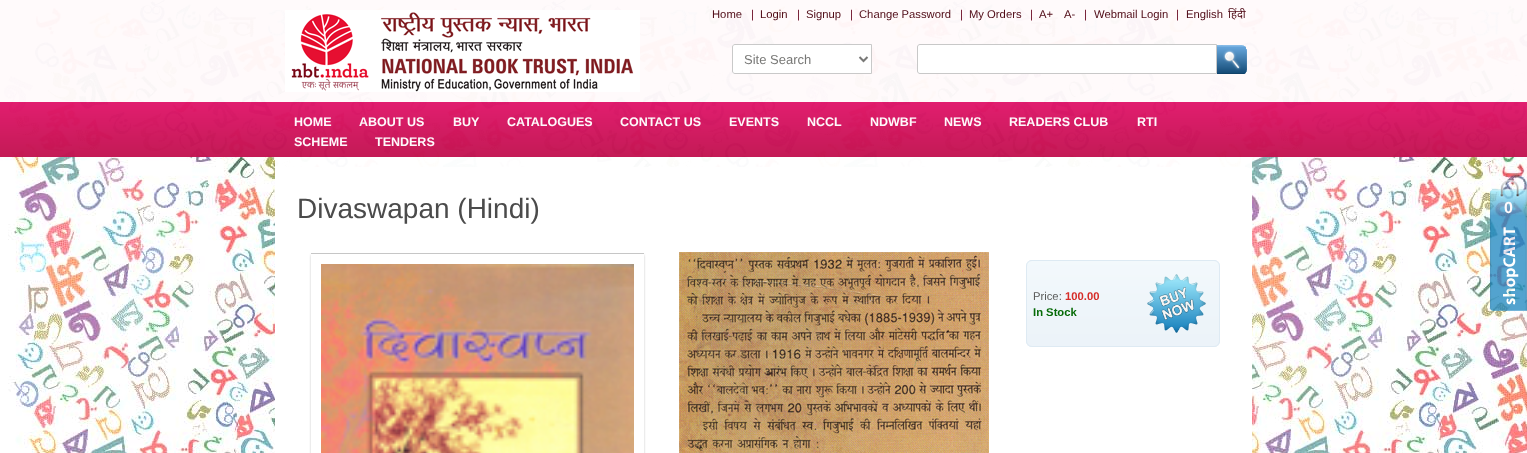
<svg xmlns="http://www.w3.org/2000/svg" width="1527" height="453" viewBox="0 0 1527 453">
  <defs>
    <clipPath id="clip1"><path d="M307 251H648V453H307ZM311 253H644V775H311Z" clip-rule="evenodd"/></clipPath>
  </defs>
  <rect width="100%" height="100%" fill="#fff"/>
  <image x="0" y="0" width="1527" height="453" href="img/1.png"/>
  <path d="M0 0h1527v102H0z" fill="#fffafbf7"/>
  <image x="285" y="10" width="355" height="82" href="img/2.png"/>
  <path d="M735 44H872V74H735C733.5 74 732 72.5 732 71V47C732 45.5 733.5 44 735 44Z" fill="#fffffff7"/>
  <path d="M735 44.5H871.5V73.5H735C733.5 73.5 732.5 72.5 732.5 71V47C732.5 45.5 733.5 44.5 735 44.5Z" fill="none" stroke="#c7c7c7f7"/>
  <path d="M859.5 57L863.5 61L867.5 57" fill="none" stroke="#787876" stroke-width="2"/>
  <path d="M920 44.5H1216.5V73.5H920C918.5 73.5 917.5 72.5 917.5 71V47C917.5 45.5 918.5 44.5 920 44.5Z" fill="#fffffff7" stroke="#c8c8c8"/>
  <image x="1217" y="45" width="30" height="29" href="img/3.png"/>
  <path d="M275 157h977v296H275z" fill="#fffffff7"/>
  <rect x="275" y="167" width="977" height="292" rx="6" fill="#fffffff7"/>
  <g clip-path="url(#clip1)">
    <path d="M311 255h333v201H311z" fill="#c4c4c4f7" filter="blur(1px)"/>
  </g>
  <path d="M311 253h333v1H311z" fill="#c6c6c6"/>
  <image x="321" y="264" width="313" height="189" href="img/4.png"/>
  <image x="679" y="252" width="310" height="201" href="img/5.png"/>
  <rect x="1026" y="260" width="194" height="87" rx="6" fill="#deeaf3"/>
  <image x="1026" y="261" width="194" height="86" href="img/6.png"/>
  <rect x="1026.5" y="260.5" width="193" height="86" rx="5.5" fill="none" stroke="#dde9f3f7"/>
  <image x="1147" y="274" width="59" height="59" href="img/7.png"/>
  <image x="1490" y="180" width="37" height="131" href="img/8.png"/>
  <text x="712" y="18" font-family="Liberation Sans" font-size="11.25" fill="#4f0a15">Home</text>
  <text x="751" y="18" font-family="Liberation Sans" font-size="11.25" fill="#6d0e26">|</text>
  <text x="760" y="18" font-family="Liberation Sans" font-size="11.25" fill="#4f0a15">Login</text>
  <text x="797" y="18" font-family="Liberation Sans" font-size="11.25" fill="#6d0e26">|</text>
  <text x="806" y="18" font-family="Liberation Sans" font-size="11.25" fill="#4f0a15">Signup</text>
  <text x="850" y="18" font-family="Liberation Sans" font-size="11.25" fill="#6d0e26">|</text>
  <text x="859" y="18" font-family="Liberation Sans" font-size="11.25" fill="#4f0a15">Change Password</text>
  <text x="960" y="18" font-family="Liberation Sans" font-size="11.25" fill="#6d0e26">|</text>
  <text x="969" y="18" font-family="Liberation Sans" font-size="11.25" fill="#4f0a15">My Orders</text>
  <text x="1030" y="18" font-family="Liberation Sans" font-size="11.25" fill="#6d0e26">|</text>
  <g font-family="Liberation Sans" font-size="11.25" fill="#4f0a15">
    <text x="1039" y="18">A+</text>
    <text x="1064" y="18">A-</text>
  </g>
  <text x="1084" y="18" font-family="Liberation Sans" font-size="11.25" fill="#6d0e26">|</text>
  <text x="1094" y="18" font-family="Liberation Sans" font-size="11.25" fill="#4f0a15">Webmail Login</text>
  <text x="1176" y="18" font-family="Liberation Sans" font-size="11.25" fill="#6d0e26">|</text>
  <text x="1186" y="18" font-family="Liberation Sans" font-size="11.25" fill="#4f0a15">English</text>
  <text x="1228" y="18" font-family="Noto Sans" font-size="11.25" fill="#4f0a15">हिंदी</text>
  <text x="744" y="64" font-family="Liberation Sans" font-size="13" fill="#787876">Site Search</text>
  <g font-family="Liberation Sans" font-size="12.5" font-weight="bold" fill="#fef9fb">
    <text x="294" y="126">HOME</text>
    <text x="359" y="126">ABOUT US</text>
    <text x="453" y="126">BUY</text>
    <text x="507" y="126">CATALOGUES</text>
    <text x="620" y="126">CONTACT US</text>
    <text x="729" y="126">EVENTS</text>
    <text x="807" y="126">NCCL</text>
    <text x="870" y="126">NDWBF</text>
    <text x="944" y="126">NEWS</text>
    <text x="1009" y="126">READERS CLUB</text>
    <text x="1137" y="126">RTI</text>
    <text x="294" y="146">SCHEME</text>
    <text x="375" y="146">TENDERS</text>
  </g>
  <text x="297" y="218" font-family="Liberation Sans" font-size="28" fill="#4b4b4b">Divaswapan (Hindi)</text>
  <text x="1033" y="300" font-family="Liberation Sans" font-size="11.25" fill="#5a5a5a">Price:</text>
  <text x="1065" y="300" font-family="Liberation Sans" font-size="11.25" font-weight="bold" fill="#d62d29">100.00</text>
  <text x="1033" y="316" font-family="Liberation Sans" font-size="11.25" font-weight="bold" fill="#066a07">In Stock</text>
  <text x="1504" y="213" font-family="Liberation Sans" font-size="16" font-weight="bold" fill="#fef9fb">0</text>
</svg>
